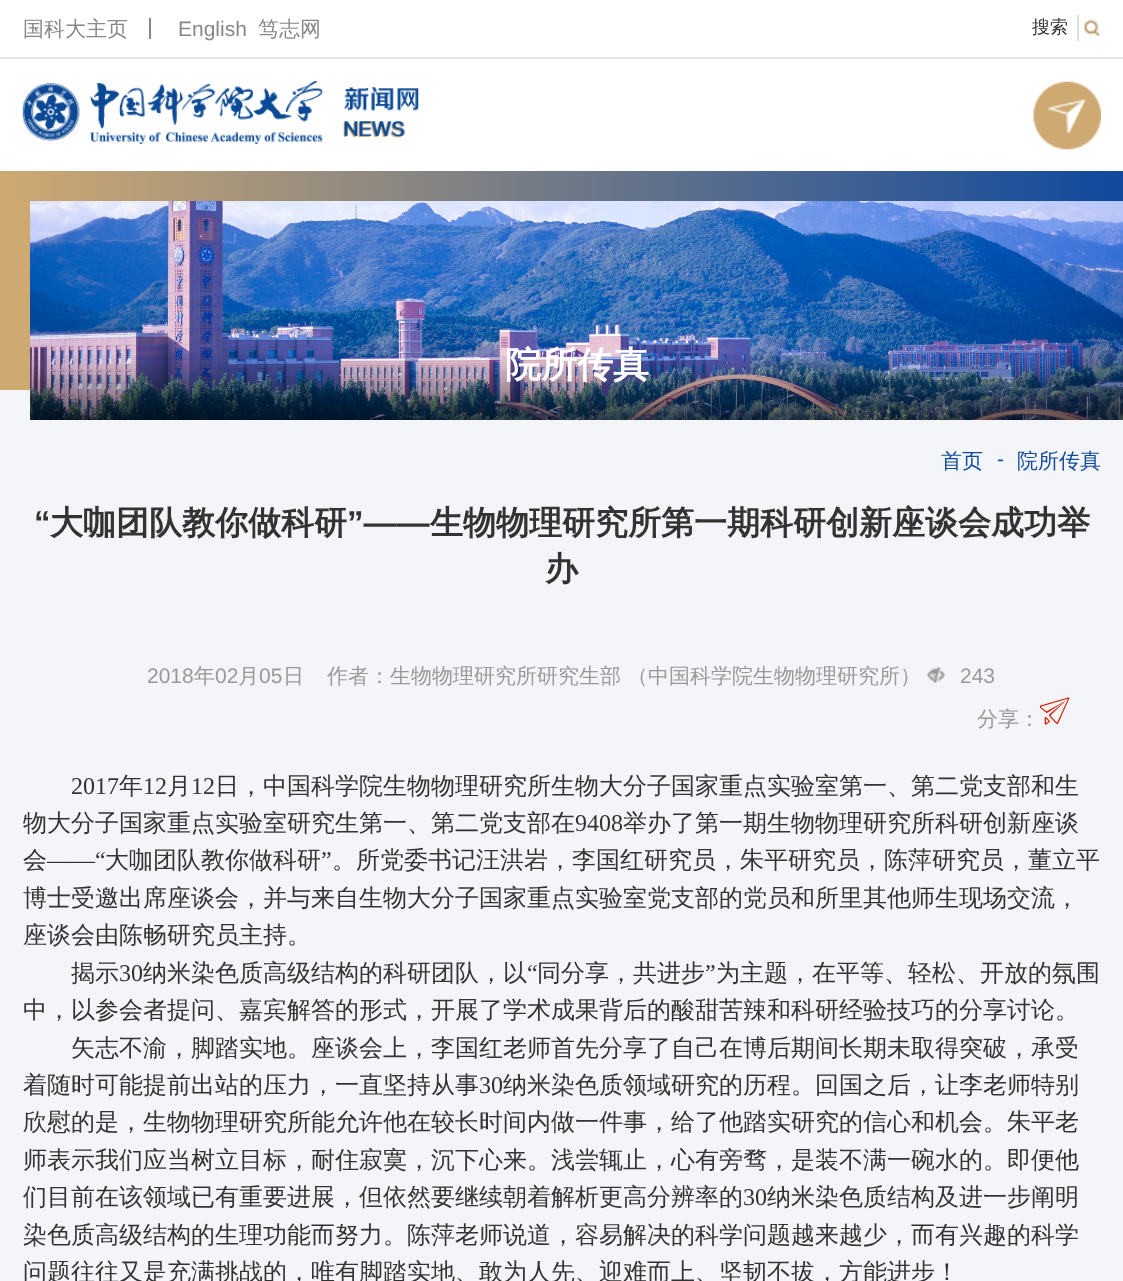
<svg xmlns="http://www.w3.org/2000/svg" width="1123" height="1281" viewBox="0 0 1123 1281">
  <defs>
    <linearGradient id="g1" gradientUnits="userSpaceOnUse" x1="0" y1="186" x2="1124" y2="186"><stop offset="0" stop-color="#cfa972"/><stop offset="1" stop-color="#10499e"/></linearGradient>
    <clipPath id="clip1"><path d="M23 501h1078v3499H23z"/></clipPath>
  </defs>
  <rect width="100%" height="100%" fill="#fff"/>
  <path d="M0 57h1123v2H0z" fill="#e5e5e5"/>
  <path d="M149 18h2v21H149z" fill="#888"/>
  <image x="1083" y="19" width="17" height="17" href="img/1.png"/>
  <path d="M1077 15h2v26H1077z" fill="#dcdcdc"/>
  <image x="22" y="81" width="301" height="63" href="img/2.png"/>
  <image x="343" y="87" width="76" height="51" href="img/3.png"/>
  <image x="1033" y="81" width="68" height="69" href="img/4.png"/>
  <path d="M0 390h30v30H0z" fill="#f3f5f9"/>
  <path d="M0 171h1123v30H0z" fill="url(#g1)"/>
  <path d="M0 201h30v189H0z" fill="#cfa972"/>
  <image x="30" y="201" width="1093" height="219" href="img/5.png"/>
  <path d="M0 420h1123v861H0z" fill="#f3f5f9"/>
  <image x="927" y="667" width="18" height="16" href="img/6.png"/>
  <image x="1040" y="697" width="30" height="28" href="img/7.png"/>
  <text x="23" y="36" font-family="WenQuanYi Zen Hei" font-size="21" font-weight="500" fill="#888">国科大主页</text>
  <text x="178" y="36" font-family="Liberation Sans" font-size="21" fill="#888">English</text>
  <text x="258" y="36" font-family="WenQuanYi Zen Hei" font-size="21" font-weight="500" fill="#888">笃志网</text>
  <text x="1032" y="33" font-family="WenQuanYi Zen Hei" font-size="18" font-weight="500" fill="#333">搜索</text>
  <text x="505" y="377" font-family="WenQuanYi Zen Hei" font-size="36" font-weight="bold" fill="#fff">院所传真</text>
  <text x="941" y="468" font-family="WenQuanYi Zen Hei" font-size="21" font-weight="500" fill="#10499e">首页</text>
  <text x="997" y="466" font-family="Liberation Sans" font-size="21" fill="#10499e">-</text>
  <text x="1017" y="468" font-family="WenQuanYi Zen Hei" font-size="21" font-weight="500" fill="#10499e">院所传真</text>
  <text x="34" y="534" font-family="Liberation Sans" font-size="33" font-weight="bold" fill="#333">“</text>
  <text x="50" y="534" font-family="WenQuanYi Zen Hei" font-size="33" font-weight="bold" fill="#333">大咖团队教你做科研</text>
  <text x="347" y="534" font-family="Liberation Sans" font-size="33" font-weight="bold" fill="#333">”——</text>
  <g font-family="WenQuanYi Zen Hei" font-size="33" font-weight="bold" fill="#333">
    <text x="430" y="534">生物物理研究所第一期科研创新座谈会成功举</text>
    <text x="545" y="580">办</text>
  </g>
  <text x="147" y="683" font-family="Liberation Sans" font-size="21" fill="#999">2018</text>
  <text x="194" y="683" font-family="WenQuanYi Zen Hei" font-size="21" font-weight="500" fill="#999">年</text>
  <text x="215" y="683" font-family="Liberation Sans" font-size="21" fill="#999">02</text>
  <text x="238" y="683" font-family="WenQuanYi Zen Hei" font-size="21" font-weight="500" fill="#999">月</text>
  <text x="259" y="683" font-family="Liberation Sans" font-size="21" fill="#999">05</text>
  <g font-family="WenQuanYi Zen Hei" font-size="21" font-weight="500" fill="#999">
    <text x="283" y="683">日</text>
    <text x="327" y="683">作者：生物物理研究所研究生部</text>
    <text x="627" y="683">（中国科学院生物物理研究所）</text>
  </g>
  <text x="960" y="683" font-family="Liberation Sans" font-size="21" fill="#999">243</text>
  <text x="977" y="726" font-family="WenQuanYi Zen Hei" font-size="21" font-weight="500" fill="#999">分享：</text>
  <text x="71" y="794" font-family="Liberation Serif" font-size="24" fill="#333">2017</text>
  <text x="119" y="794" font-family="WenQuanYi Zen Hei" font-size="24" font-weight="500" fill="#333">年</text>
  <text x="143" y="794" font-family="Liberation Serif" font-size="24" fill="#333">12</text>
  <text x="167" y="794" font-family="WenQuanYi Zen Hei" font-size="24" font-weight="500" fill="#333">月</text>
  <text x="191" y="794" font-family="Liberation Serif" font-size="24" fill="#333">12</text>
  <text x="215" y="794" font-family="WenQuanYi Zen Hei" font-size="24" font-weight="500" fill="#333">日，中国科学院生物物理研究所生物大分子国家重点实验室第一、第二党支部和生</text>
  <g clip-path="url(#clip1)">
    <text x="23" y="831" font-family="WenQuanYi Zen Hei" font-size="24" font-weight="500" fill="#333">物大分子国家重点实验室研究生第一、第二党支部在</text>
  </g>
  <text x="575" y="831" font-family="Liberation Serif" font-size="24" fill="#333">9408</text>
  <g font-family="WenQuanYi Zen Hei" font-size="24" font-weight="500" fill="#333">
    <text x="623" y="831">举办了第一期生物物理研究所科研创新座谈</text>
    <text x="23" y="868">会</text>
  </g>
  <text x="47" y="868" font-family="Liberation Serif" font-size="24" fill="#333">——“</text>
  <text x="105" y="868" font-family="WenQuanYi Zen Hei" font-size="24" font-weight="500" fill="#333">大咖团队教你做科研</text>
  <text x="321" y="868" font-family="Liberation Serif" font-size="24" fill="#333">”</text>
  <g font-family="WenQuanYi Zen Hei" font-size="24" font-weight="500" fill="#333">
    <text x="332" y="868">。所党委书记汪洪岩，李国红研究员，朱平研究员，陈萍研究员，董立平</text>
    <text x="23" y="906">博士受邀出席座谈会，并与来自生物大分子国家重点实验室党支部的党员和所里其他师生现场交流，</text>
    <text x="23" y="943">座谈会由陈畅研究员主持。</text>
    <text x="71" y="981">揭示</text>
  </g>
  <text x="119" y="981" font-family="Liberation Serif" font-size="24" fill="#333">30</text>
  <text x="143" y="981" font-family="WenQuanYi Zen Hei" font-size="24" font-weight="500" fill="#333">纳米染色质高级结构的科研团队，以</text>
  <text x="527" y="981" font-family="Liberation Serif" font-size="24" fill="#333">“</text>
  <text x="537" y="981" font-family="WenQuanYi Zen Hei" font-size="24" font-weight="500" fill="#333">同分享，共进步</text>
  <text x="705" y="981" font-family="Liberation Serif" font-size="24" fill="#333">”</text>
  <g font-family="WenQuanYi Zen Hei" font-size="24" font-weight="500" fill="#333">
    <text x="716" y="981">为主题，在平等、轻松、开放的氛围</text>
    <text x="23" y="1018">中，以参会者提问、嘉宾解答的形式，开展了学术成果背后的酸甜苦辣和科研经验技巧的分享讨论。</text>
    <text x="71" y="1056">矢志不渝，脚踏实地。座谈会上，李国红老师首先分享了自己在博后期间长期未取得突破，承受</text>
    <text x="23" y="1093">着随时可能提前出站的压力，一直坚持从事</text>
  </g>
  <text x="479" y="1093" font-family="Liberation Serif" font-size="24" fill="#333">30</text>
  <g font-family="WenQuanYi Zen Hei" font-size="24" font-weight="500" fill="#333">
    <text x="503" y="1093">纳米染色质领域研究的历程。回国之后，让李老师特别</text>
    <text x="23" y="1130">欣慰的是，生物物理研究所能允许他在较长时间内做一件事，给了他踏实研究的信心和机会。朱平老</text>
    <text x="23" y="1168">师表示我们应当树立目标，耐住寂寞，沉下心来。浅尝辄止，心有旁骛，是装不满一碗水的。即便他</text>
    <text x="23" y="1205">们目前在该领域已有重要进展，但依然要继续朝着解析更高分辨率的</text>
  </g>
  <text x="743" y="1205" font-family="Liberation Serif" font-size="24" fill="#333">30</text>
  <g font-family="WenQuanYi Zen Hei" font-size="24" font-weight="500" fill="#333">
    <text x="767" y="1205">纳米染色质结构及进一步阐明</text>
    <text x="23" y="1243">染色质高级结构的生理功能而努力。陈萍老师说道，容易解决的科学问题越来越少，而有兴趣的科学</text>
    <text x="23" y="1280">问题往往又是充满挑战的，唯有脚踏实地、敢为人先、迎难而上、坚韧不拔，方能进步！</text>
  </g>
</svg>
